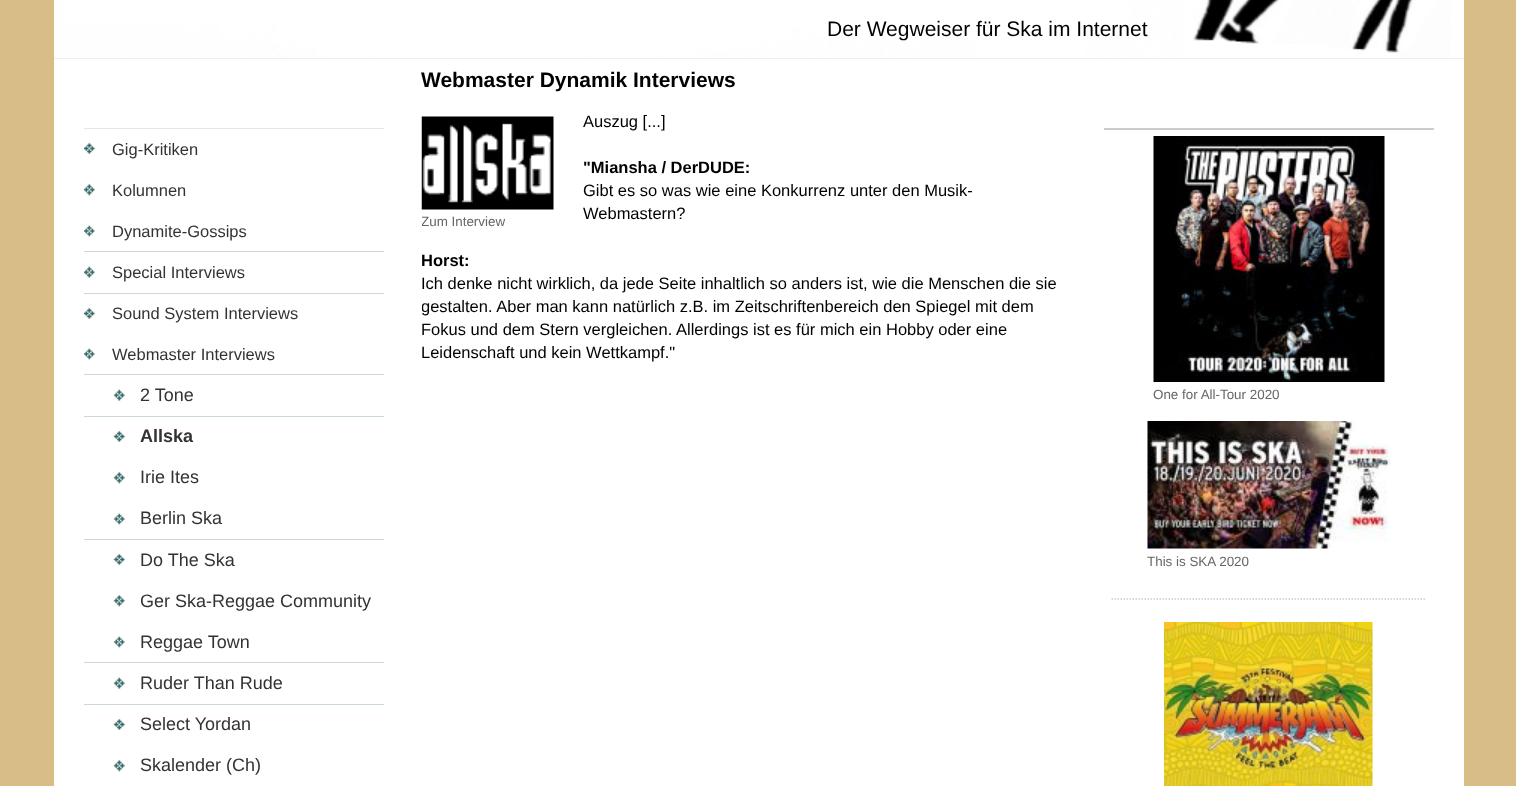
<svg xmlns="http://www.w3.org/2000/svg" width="1516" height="786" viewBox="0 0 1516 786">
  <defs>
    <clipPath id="clip1"><path d="M422 111h645v254H422z"/></clipPath>
  </defs>
  <rect width="100%" height="100%" fill="#d9bd87"/>
  <path d="M54 58h1410v1H54z" fill="#eee"/>
  <image x="54" y="0" width="1410" height="58" href="img/1.png"/>
  <image x="1189" y="38" width="211" height="20" href="img/2.png"/>
  <path d="M54 59h1410v727H54z" fill="#fff"/>
  <path d="M84 143h300v629H84z" fill="#366"/>
  <path d="M84 128h300v1H84z" fill="#ccc"/>
  <image x="84" y="128" width="300" height="41" href="img/3.png"/>
  <image x="84" y="169" width="300" height="42" href="img/4.png"/>
  <image x="84" y="211" width="300" height="41" href="img/5.png"/>
  <image x="84" y="251" width="300" height="43" href="img/6.png"/>
  <image x="84" y="293" width="300" height="41" href="img/7.png"/>
  <image x="84" y="334" width="300" height="41" href="img/5.png"/>
  <image x="84" y="374" width="300" height="43" href="img/8.png"/>
  <image x="84" y="416" width="300" height="41" href="img/9.png"/>
  <image x="84" y="457" width="300" height="42" href="img/10.png"/>
  <image x="84" y="499" width="300" height="41" href="img/11.png"/>
  <image x="84" y="539" width="300" height="41" href="img/9.png"/>
  <image x="84" y="580" width="300" height="42" href="img/10.png"/>
  <image x="84" y="622" width="300" height="41" href="img/11.png"/>
  <image x="84" y="662" width="300" height="43" href="img/8.png"/>
  <image x="84" y="704" width="300" height="41" href="img/9.png"/>
  <image x="84" y="745" width="300" height="41" href="img/12.png"/>
  <image x="421" y="116" width="133" height="94" href="img/13.png"/>
  <path d="M1104 128h330v2H1104z" fill="#ccc"/>
  <image x="1153" y="136" width="232" height="246" href="img/14.png"/>
  <image x="1147" y="421" width="244" height="128" href="img/15.png"/>
  <path d="M1111.5 599H1426.5" fill="none" stroke="#ccc" stroke-width="1.5" stroke-dasharray="1.5 1.5"/>
  <image x="1164" y="622" width="209" height="164" href="img/16.png"/>
  <text x="827" y="36" font-family="Liberation Sans" font-size="21" fill="#000">Der Wegweiser für Ska im Internet</text>
  <g font-family="Liberation Sans" font-size="16.5" fill="#333">
    <text x="112" y="155">Gig-Kritiken</text>
    <text x="112" y="196">Kolumnen</text>
    <text x="112" y="237">Dynamite-Gossips</text>
    <text x="112" y="278">Special Interviews</text>
    <text x="112" y="319">Sound System Interviews</text>
    <text x="112" y="360">Webmaster Interviews</text>
  </g>
  <text x="140" y="401" font-family="Liberation Sans" font-size="18" fill="#333">2 Tone</text>
  <text x="140" y="442" font-family="Liberation Sans" font-size="18" font-weight="bold" fill="#333">Allska</text>
  <g font-family="Liberation Sans" font-size="18" fill="#333">
    <text x="140" y="483">Irie Ites</text>
    <text x="140" y="524">Berlin Ska</text>
    <text x="140" y="566">Do The Ska</text>
    <text x="140" y="607">Ger Ska-Reggae Community</text>
    <text x="140" y="648">Reggae Town</text>
    <text x="140" y="689">Ruder Than Rude</text>
    <text x="140" y="730">Select Yordan</text>
    <text x="140" y="771">Skalender (Ch)</text>
  </g>
  <text x="421" y="87" font-family="Liberation Sans" font-size="21" font-weight="bold" fill="#000">Webmaster Dynamik Interviews</text>
  <text x="583" y="127" font-family="Liberation Sans" font-size="16.5" fill="#000">Auszug [...]</text>
  <text x="583" y="173" font-family="Liberation Sans" font-size="16.5" font-weight="bold" fill="#000">"Miansha / DerDUDE:</text>
  <g font-family="Liberation Sans" font-size="16.5" fill="#000">
    <text x="583" y="196">Gibt es so was wie eine Konkurrenz unter den Musik-</text>
    <text x="583" y="219">Webmastern?</text>
  </g>
  <g clip-path="url(#clip1)">
    <text x="421" y="266" font-family="Liberation Sans" font-size="16.5" font-weight="bold" fill="#000">Horst:</text>
  </g>
  <text x="421" y="289" font-family="Liberation Sans" font-size="16.5" fill="#000">Ich denke nicht wirklich, da jede Seite inhaltlich so anders ist, wie die Menschen die sie</text>
  <g clip-path="url(#clip1)">
    <text x="421" y="312" font-family="Liberation Sans" font-size="16.5" fill="#000">gestalten. Aber man kann natürlich z.B. im Zeitschriftenbereich den Spiegel mit dem</text>
  </g>
  <g font-family="Liberation Sans" font-size="16.5" fill="#000">
    <text x="421" y="335">Fokus und dem Stern vergleichen. Allerdings ist es für mich ein Hobby oder eine</text>
    <text x="421" y="358">Leidenschaft und kein Wettkampf."</text>
  </g>
  <g clip-path="url(#clip1)">
    <text x="421" y="226" font-family="Liberation Sans" font-size="13.4" fill="#666">Zum Interview</text>
  </g>
  <g font-family="Liberation Sans" font-size="13.4" fill="#666">
    <text x="1153" y="399">One for All-Tour 2020</text>
    <text x="1147" y="566">This is SKA 2020</text>
  </g>
</svg>
